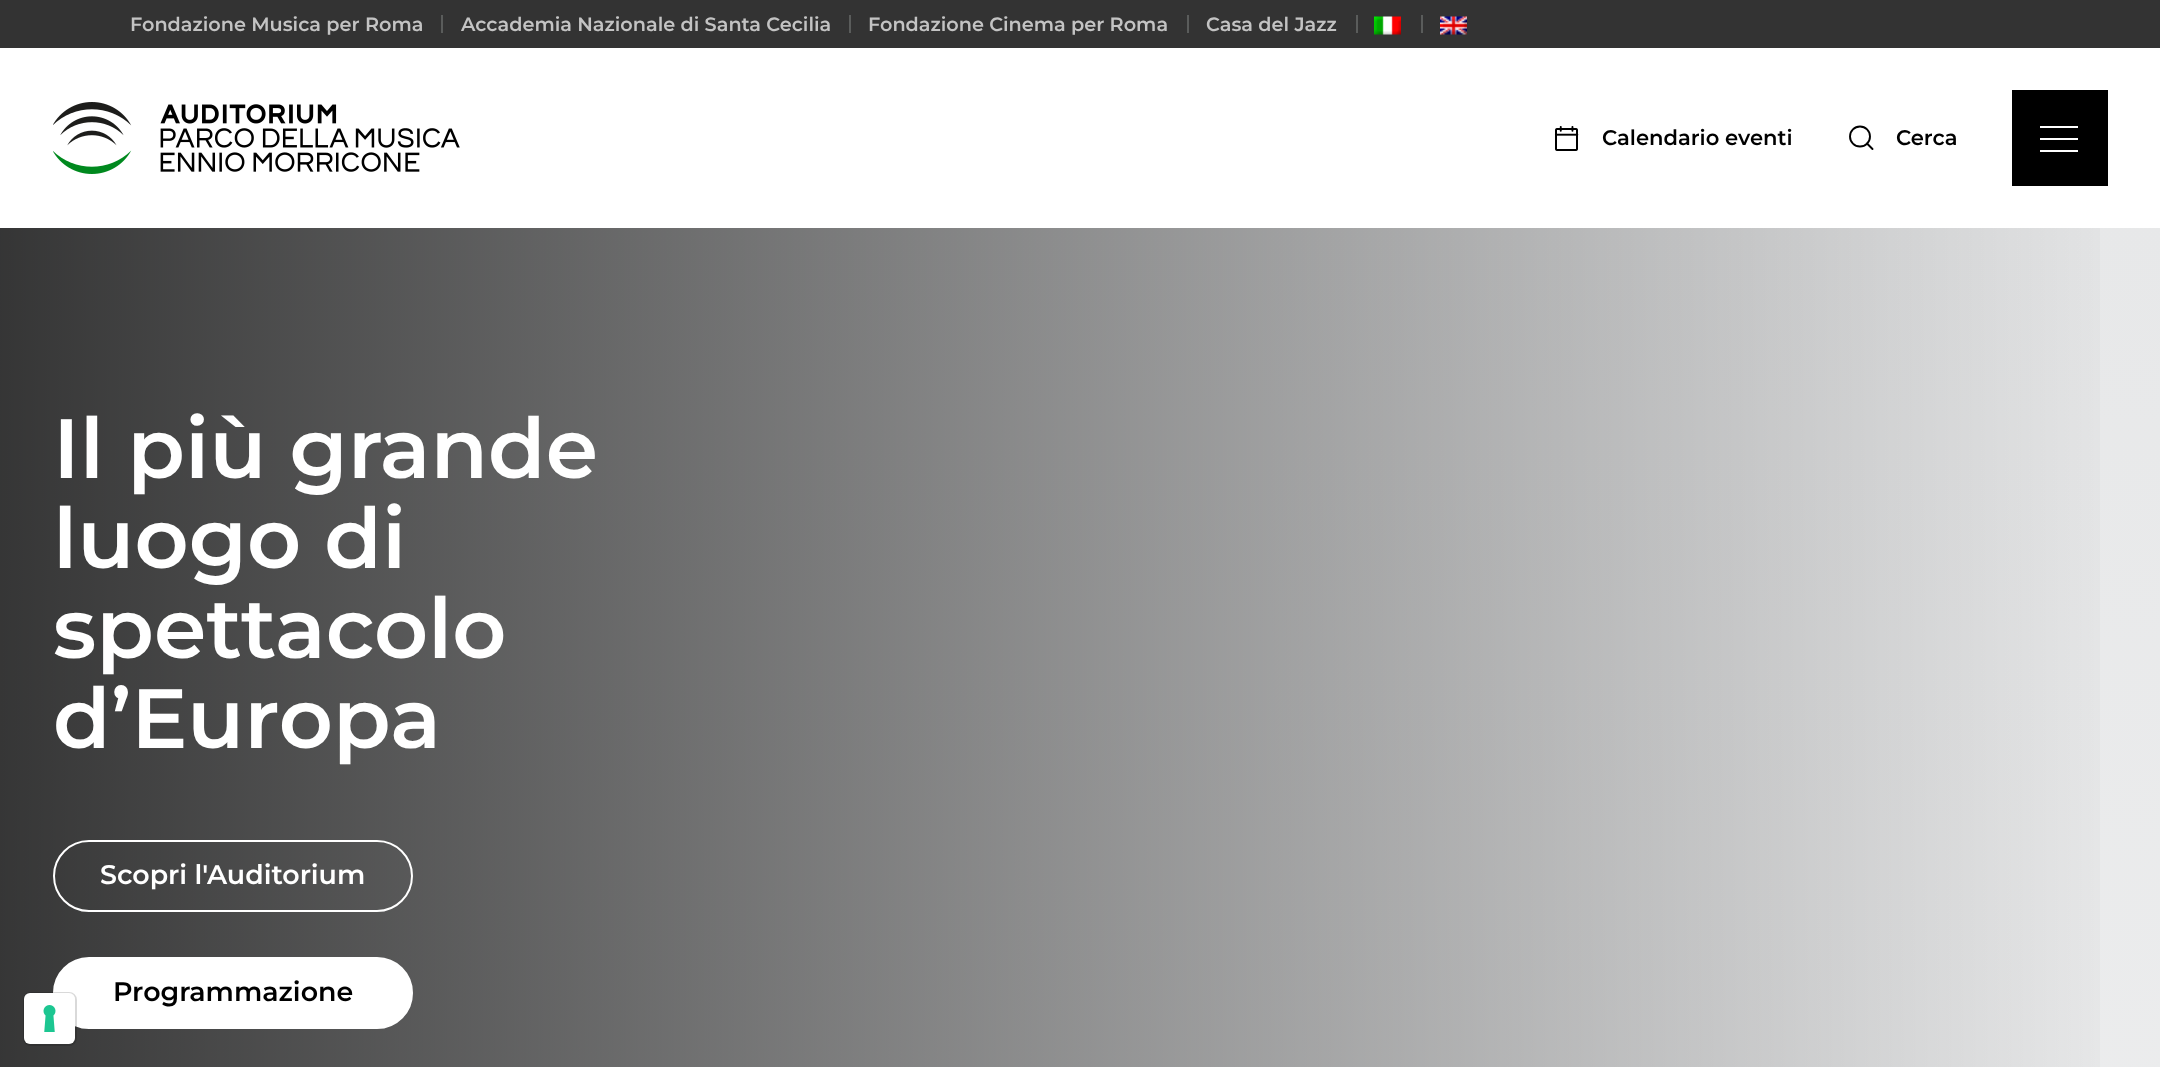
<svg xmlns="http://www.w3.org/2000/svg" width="2160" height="1067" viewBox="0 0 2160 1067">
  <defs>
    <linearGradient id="g1" gradientUnits="userSpaceOnUse" x1="1080" y1="0" x2="1080" y2="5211"><stop offset="0" stop-color="#e6e7e8"/><stop offset="1" stop-color="#fff"/></linearGradient>
    <linearGradient id="g2" gradientUnits="userSpaceOnUse" x1="0" y1="716" x2="2160" y2="715"><stop offset="0" stop-color="#000" stop-opacity="0.77"/><stop offset="1" stop-color="#000" stop-opacity="0"/></linearGradient>
  </defs>
  <rect width="100%" height="100%" fill="#fff"/>
  <path d="M0 228h2160v839H0z" fill="url(#g1)"/>
  <path d="M0 0h2160v48H0z" fill="#333"/>
  <path d="M441 15h2v18H441z" fill="#5a5c5b"/>
  <path d="M849 15h2v18H849z" fill="#5a5c5b"/>
  <path d="M1187 15h2v18H1187z" fill="#5a5c5b"/>
  <path d="M1356 15h2v18H1356z" fill="#5a5c5b"/>
  <image x="1374" y="16" width="27" height="19" href="img/1.png"/>
  <path d="M1421 15h2v18H1421z" fill="#5a5c5b"/>
  <image x="1440" y="16" width="27" height="19" href="img/2.png"/>
  <image x="53" y="102" width="407" height="72" href="img/3.png"/>
  <image x="1554" y="126" width="25" height="25" href="img/4.png"/>
  <circle cx="1860" cy="136.5" r="10" fill="none" stroke="#000" stroke-width="1.9"/>
  <path d="M1867 143.5L1872.5 149" fill="none" stroke="#000" stroke-width="1.9" stroke-linecap="round" stroke-linejoin="round"/>
  <path d="M2012 90h96v96H2012z" fill="#000"/>
  <path d="M2040 126h38v2H2040z" fill="#fff"/>
  <path d="M2040 138h38v2H2040z" fill="#fff"/>
  <path d="M2040 150h38v2H2040z" fill="#fff"/>
  <path d="M0 228h2100v839H0z" fill="url(#g2)"/>
  <rect x="54" y="841" width="358" height="70" rx="35" fill="none" stroke="#fff" stroke-width="2"/>
  <rect x="54" y="958" width="358" height="70" rx="35" fill="#fff" stroke="#fff" stroke-width="2"/>
  <rect x="24" y="993" width="52" height="52" rx="7" fill="none" stroke="#00000026" stroke-width="2"/>
  <rect x="24" y="993" width="51" height="51" rx="6" fill="#fff"/>
  <image x="43" y="1005" width="13" height="27" href="img/5.png"/>
  <g font-family="Montserrat" font-size="19.25" font-weight="600" fill="#c3c3c3">
    <text x="130" y="31">Fondazione Musica per Roma</text>
    <text x="461" y="31">Accademia Nazionale di Santa Cecilia</text>
    <text x="868" y="31">Fondazione Cinema per Roma</text>
    <text x="1206" y="31">Casa del Jazz</text>
  </g>
  <g font-family="Montserrat" font-size="21.1" font-weight="600" fill="#000">
    <text x="1602" y="145">Calendario eventi</text>
    <text x="1896" y="145">Cerca</text>
  </g>
  <g font-family="Montserrat" font-size="84" font-weight="600" fill="#fff">
    <text x="53" y="478">Il più grande</text>
    <text x="53" y="568">luogo di</text>
    <text x="53" y="658">spettacolo</text>
    <text x="53" y="748">d’Europa</text>
  </g>
  <text x="100" y="884" font-family="Montserrat" font-size="26.9" font-weight="600" fill="#fff">Scopri l'Auditorium</text>
  <text x="113" y="1001" font-family="Montserrat" font-size="26.9" font-weight="600" fill="#000">Programmazione</text>
</svg>
